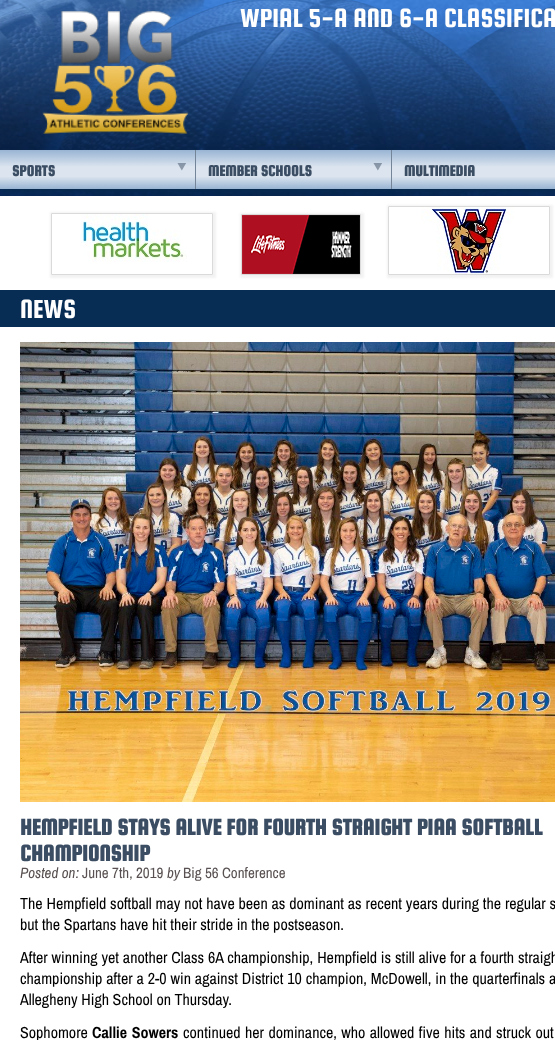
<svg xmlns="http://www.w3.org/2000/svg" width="555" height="1040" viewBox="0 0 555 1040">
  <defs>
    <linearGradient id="g1" gradientUnits="userSpaceOnUse" x1="490" y1="150" x2="490" y2="189"><stop offset="0" stop-color="#98b4d3"/><stop offset="0.43" stop-color="#dbe4ef"/><stop offset="0.68" stop-color="#dbe4ef"/><stop offset="1" stop-color="#98b4d3"/></linearGradient>
    <clipPath id="clip1"><path d="M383 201H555V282H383ZM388 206H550V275H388Z" clip-rule="evenodd"/></clipPath>
    <clipPath id="clip2"><path d="M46 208H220V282H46ZM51 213H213V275H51Z" clip-rule="evenodd"/></clipPath>
  </defs>
  <rect width="100%" height="100%" fill="#fff"/>
  <image x="0" y="0" width="555" height="196" href="img/1.png"/>
  <image x="0" y="0" width="555" height="150" href="img/2.png"/>
  <image x="42" y="10" width="147" height="124" href="img/3.png"/>
  <path d="M3 153h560v39H3z" fill="#072a4e" filter="blur(2.5px)"/>
  <path d="M0 150h555v39H0z" fill="url(#g1)"/>
  <path d="M195 150h1v39H195z" fill="#758599"/>
  <image x="177" y="163" width="9" height="8" href="img/4.png"/>
  <path d="M391 150h1v39H391z" fill="#758599"/>
  <image x="373" y="163" width="9" height="8" href="img/4.png"/>
  <path d="M2 196h553v2H2z" fill="#fff"/>
  <g clip-path="url(#clip1)">
    <path d="M387 205h166v73H387z" fill="#f2f2f2" filter="blur(1px)"/>
  </g>
  <path d="M388.5 206.5h161v68H388.5z" fill="none" stroke="#dbdada"/>
  <g clip-path="url(#clip2)">
    <path d="M50 212h166v66H50z" fill="#f2f2f2" filter="blur(1px)"/>
  </g>
  <path d="M240 213h124v65H240z" fill="#f2f2f2" filter="blur(1px)"/>
  <image x="421" y="207" width="93" height="67" href="img/5.png"/>
  <path d="M51.5 213.5h161v61H51.5z" fill="none" stroke="#dbdada"/>
  <image x="80" y="214" width="107" height="48" href="img/6.png"/>
  <path d="M241.5 214.5h119v60H241.5z" fill="none" stroke="#dbdada"/>
  <image x="242" y="215" width="118" height="59" href="img/7.png"/>
  <path d="M0 290h555v37H0z" fill="#072d55"/>
  <image x="20" y="342" width="535" height="460" href="img/8.png"/>
  <text x="240" y="27" font-family="Squada One" font-size="28" fill="#fff">WPIAL 5-A AND 6-A CLASSIFICA</text>
  <g font-family="Squada One" font-size="16" font-weight="bold" fill="#3b4d63">
    <text x="12" y="176">SPORTS</text>
    <text x="208" y="176">MEMBER SCHOOLS</text>
    <text x="404" y="176">MULTIMEDIA</text>
  </g>
  <text x="20" y="318" font-family="Squada One" font-size="28" fill="#fff">NEWS</text>
  <g font-family="Squada One" font-size="24" font-weight="bold" fill="#3b4d63">
    <text x="20" y="835">HEMPFIELD STAYS ALIVE FOR FOURTH STRAIGHT PIAA SOFTBALL</text>
    <text x="20" y="861">CHAMPIONSHIP</text>
  </g>
  <text x="20" y="878" font-family="Archivo Narrow" font-size="15" font-style="italic" fill="#595151">Posted on:</text>
  <text x="82" y="878" font-family="Archivo Narrow" font-size="15" fill="#595151">June 7th, 2019</text>
  <text x="167" y="878" font-family="Archivo Narrow" font-size="15" font-style="italic" fill="#595151">by</text>
  <text x="183" y="878" font-family="Archivo Narrow" font-size="15" fill="#595151">Big 56 Conference</text>
  <g font-family="Archivo Narrow" font-size="16" fill="#000">
    <text x="20" y="909" word-spacing="0.2">The Hempfield softball may not have been as dominant as recent years during the regular s</text>
    <text x="20" y="930">but the Spartans have hit their stride in the postseason.</text>
    <text x="20" y="963" word-spacing="0.25">After winning yet another Class 6A championship, Hempfield is still alive for a fourth straigh</text>
    <text x="20" y="984" word-spacing="0.25">championship after a 2-0 win against District 10 champion, McDowell, in the quarterfinals a</text>
    <text x="20" y="1005">Allegheny High School on Thursday.</text>
    <text x="20" y="1038">Sophomore</text>
  </g>
  <text x="92" y="1038" word-spacing="1" font-family="Archivo Narrow" font-size="16" font-weight="bold" fill="#000">Callie Sowers</text>
  <text x="183" y="1038" word-spacing="0.75" font-family="Archivo Narrow" font-size="16" fill="#000">continued her dominance, who allowed five hits and struck out</text>
</svg>
